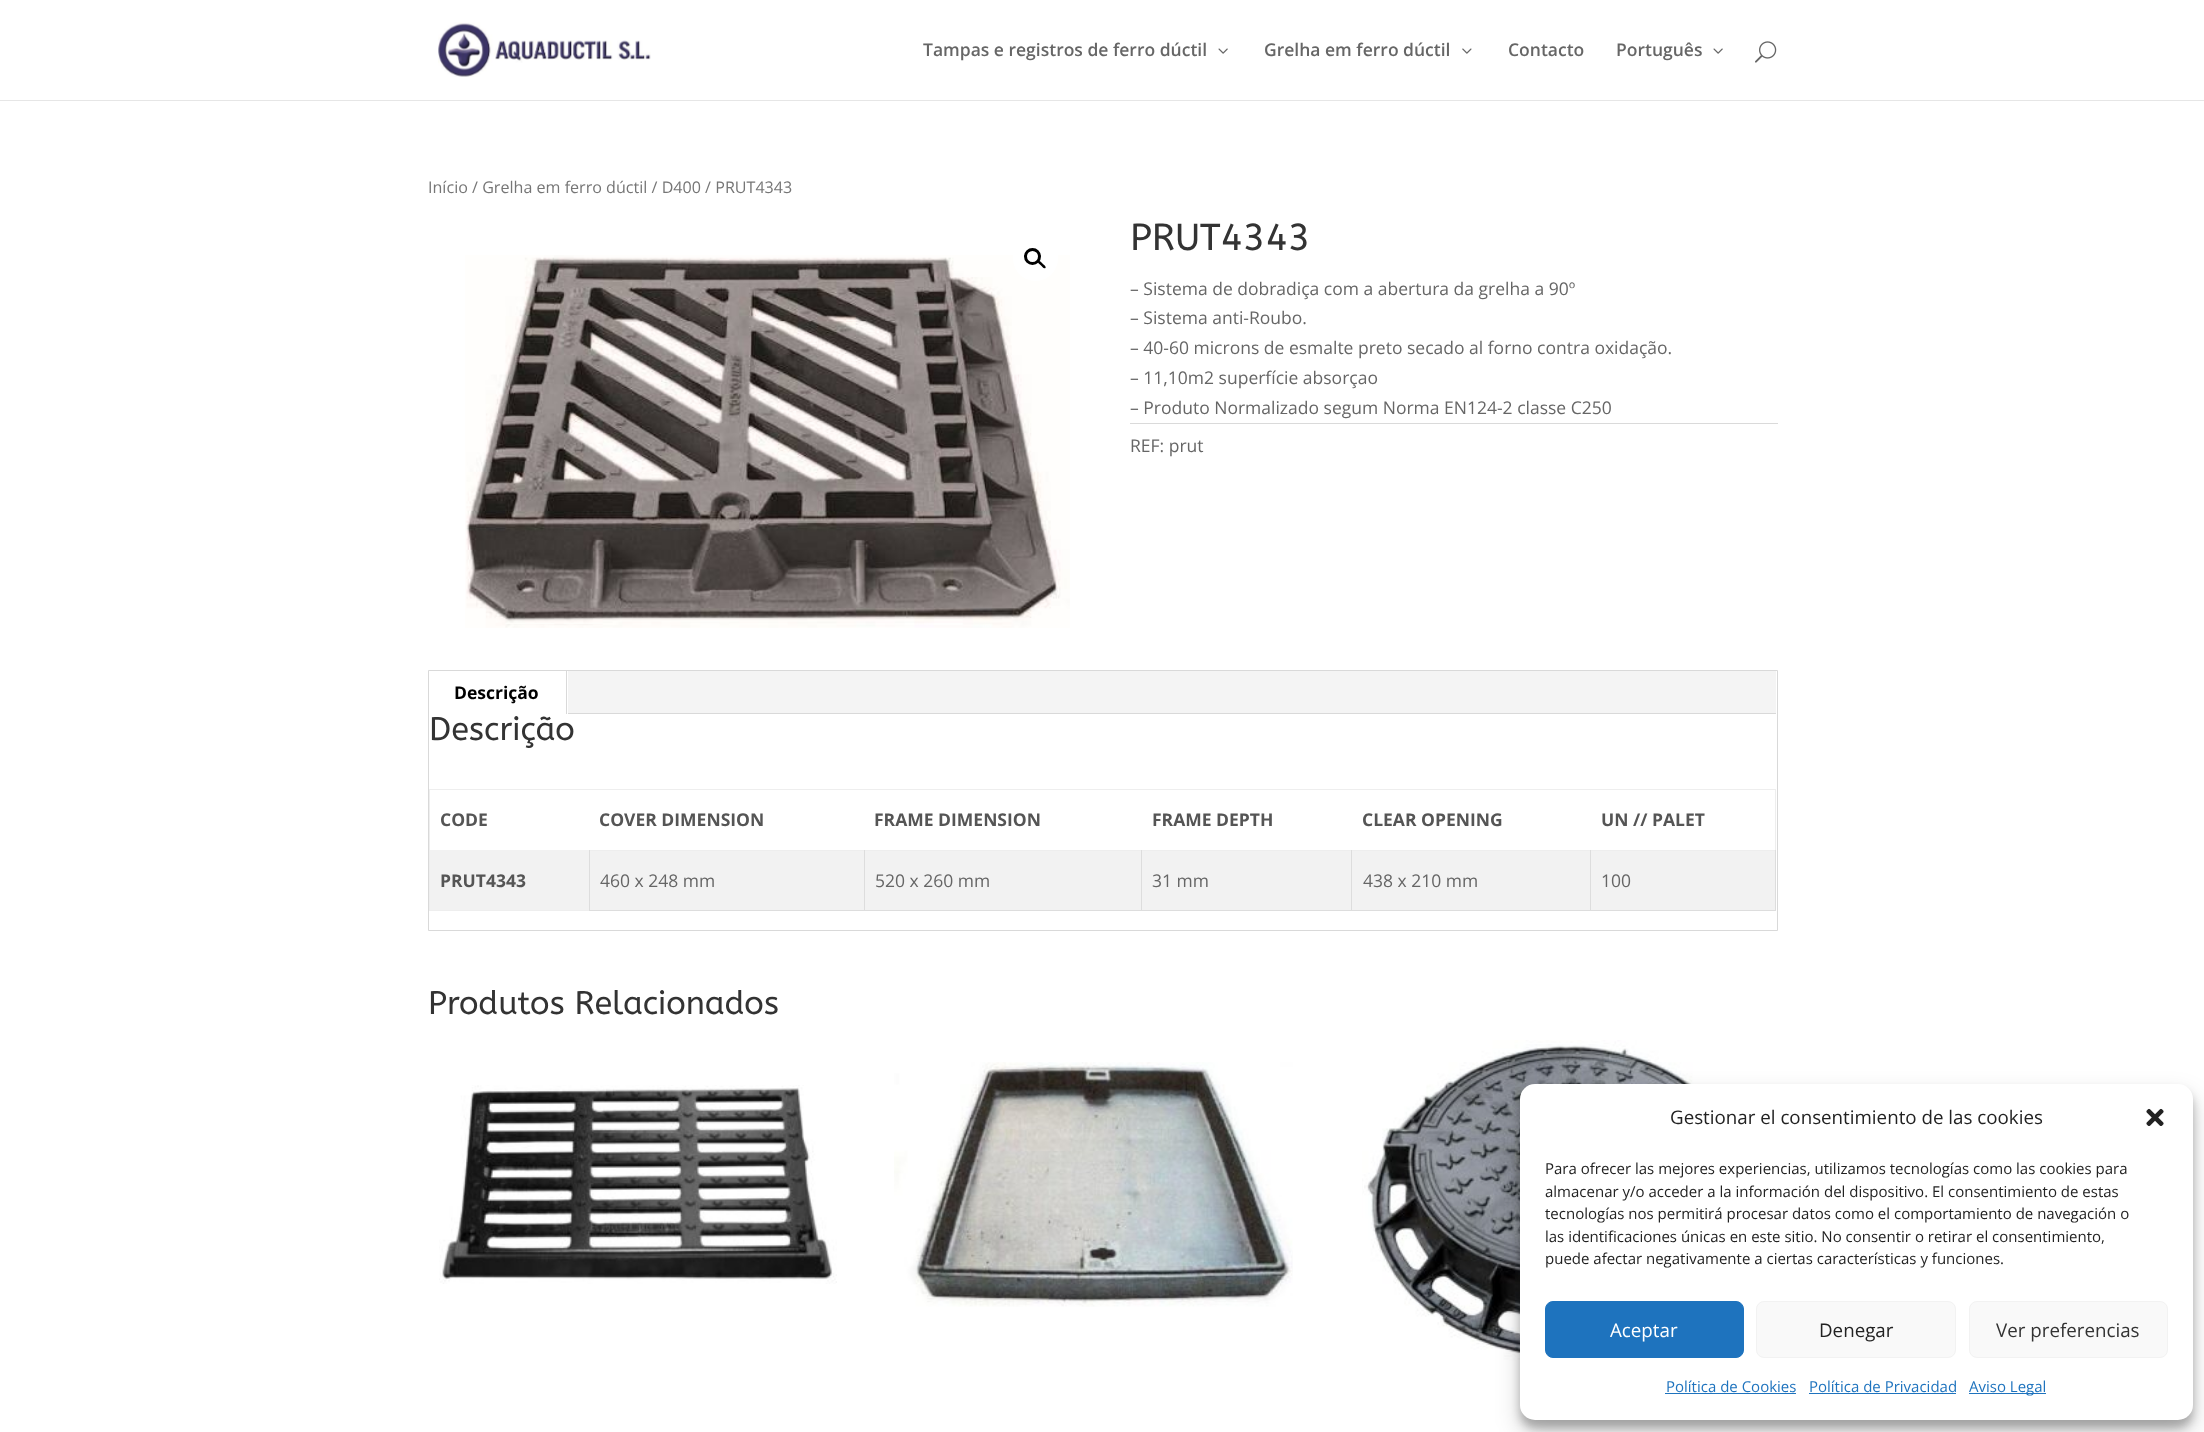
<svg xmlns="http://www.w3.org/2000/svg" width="2204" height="1432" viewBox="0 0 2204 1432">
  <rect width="100%" height="100%" fill="#fff"/>
  <path d="M0 100h2204v1H0z" fill="#e6e6e6"/>
  <image x="438" y="22" width="213" height="55" href="img/1.png"/>
  <image x="1218" y="48" width="10" height="6" href="img/2.png"/>
  <image x="1462" y="48" width="10" height="6" href="img/3.png"/>
  <image x="1713" y="48" width="10" height="6" href="img/2.png"/>
  <image x="1755" y="41" width="22" height="22" href="img/4.png"/>
  <image x="465" y="255" width="605" height="373" href="img/5.png"/>
  <circle cx="1035.5" cy="258.5" r="22.5" fill="#fff"/>
  <circle cx="1032.5" cy="256.5" r="7" fill="none" stroke="#000" stroke-width="3"/>
  <path d="M1038 261C1039.5 259.5 1042 263 1042.5 263.5C1043.5 264.5 1046.5 266.5 1045.5 268C1044 269.5 1041.5 266 1041 265.5C1040 264.5 1037 262.5 1038 261Z" fill="#000"/>
  <path d="M1130 423h648v1H1130z" fill="#dadada"/>
  <path d="M428.5 670.5h1349v260H428.5z" fill="none" stroke="#d9d9d9"/>
  <path d="M568 671h1208v42H568z" fill="#f4f4f4"/>
  <path d="M566 671h1v43H566z" fill="#d9d9d9"/>
  <path d="M568 713h1208v1H568z" fill="#d9d9d9"/>
  <path d="M429 789h1347v1H429z" fill="#eee"/>
  <path d="M1775 789h1v61H1775z" fill="#eee"/>
  <path d="M429 910h160v1H429z" fill="#eee"/>
  <path d="M429 789h1v122H429z" fill="#eee"/>
  <path d="M430 850h1345v60H430z" fill="#f2f2f2"/>
  <path d="M589 850h1187v1H589z" fill="#eee"/>
  <path d="M1775 850h1v61H1775z" fill="#ddd"/>
  <path d="M1590 910h186v1H1590z" fill="#ddd"/>
  <path d="M1590 850h1v61H1590z" fill="#ddd"/>
  <path d="M1351 910h240v1H1351z" fill="#ddd"/>
  <path d="M1351 850h1v61H1351z" fill="#ddd"/>
  <path d="M1141 910h212v1H1141z" fill="#ddd"/>
  <path d="M1141 850h1v61H1141z" fill="#ddd"/>
  <path d="M864 910h279v1H864z" fill="#ddd"/>
  <path d="M864 850h1v61H864z" fill="#ddd"/>
  <path d="M589 910h276v1H589z" fill="#ddd"/>
  <path d="M589 850h1v61H589z" fill="#ddd"/>
  <image x="439" y="1085" width="398" height="199" href="img/6.png"/>
  <image x="894" y="1062" width="399" height="245" href="img/7.png"/>
  <image x="1362" y="1040" width="408" height="321" href="img/8.png"/>
  <rect x="1520" y="1091" width="673" height="337" rx="15" fill="#0000003b" filter="blur(4px)"/>
  <rect x="1520" y="1096" width="673" height="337" rx="15" fill="#00000030" filter="blur(12.5px)"/>
  <rect x="1520" y="1084" width="673" height="336" rx="15" fill="#fff"/>
  <image x="2146" y="1108" width="18" height="18" href="img/9.png"/>
  <rect x="1545.5" y="1301.5" width="198" height="56" rx="7.5" fill="#1e73be" stroke="#1e73be"/>
  <rect x="1756.5" y="1301.5" width="199" height="56" rx="7.5" fill="#f9f9f9" stroke="#f2f2f2"/>
  <rect x="1969.5" y="1301.5" width="198" height="56" rx="7.5" fill="#f9f9f9" stroke="#f2f2f2"/>
  <path d="M1665 1393h131v1H1665z" fill="#1e73be"/>
  <path d="M1809 1393h147v1H1809z" fill="#1e73be"/>
  <path d="M1969 1393h77v1H1969z" fill="#1e73be"/>
  <g font-family="Open Sans" font-size="17.5" font-weight="600" fill="#666">
    <text x="923" y="56">Tampas e registros de ferro dúctil</text>
    <text x="1264" y="56">Grelha em ferro dúctil</text>
    <text x="1508" y="56">Contacto</text>
    <text x="1616" y="56">Português</text>
  </g>
  <text x="428" y="193" font-family="Open Sans" font-size="16.1" fill="#767676">Início / Grelha em ferro dúctil / D400 / PRUT4343</text>
  <text x="1130" y="250" font-family="ABeeZee" font-size="37.5" fill="#333">PRUT4343</text>
  <g font-family="Open Sans" font-size="17.5" fill="#666">
    <text x="1130" y="295">– Sistema de dobradiça com a abertura da grelha a 90º</text>
    <text x="1130" y="324">– Sistema anti-Roubo.</text>
    <text x="1130" y="354">– 40-60 microns de esmalte preto secado al forno contra oxidação.</text>
    <text x="1130" y="384">– 11,10m2 superfície absorçao</text>
    <text x="1130" y="414">– Produto Normalizado segum Norma EN124-2 classe C250</text>
    <text x="1130" y="452">REF: prut</text>
  </g>
  <text x="454" y="699" font-family="Open Sans" font-size="17.5" font-weight="bold" fill="#000">Descrição</text>
  <text x="429" y="740" font-family="ABeeZee" font-size="32.5" fill="#333">Descrição</text>
  <g font-family="Open Sans" font-size="17.5" font-weight="bold" fill="#555">
    <text x="440" y="826">CODE</text>
    <text x="599" y="826">COVER DIMENSION</text>
    <text x="874" y="826">FRAME DIMENSION</text>
    <text x="1152" y="826">FRAME DEPTH</text>
    <text x="1362" y="826">CLEAR OPENING</text>
    <text x="1601" y="826">UN // PALET</text>
    <text x="440" y="887">PRUT4343</text>
  </g>
  <g font-family="Open Sans" font-size="17.5" fill="#666">
    <text x="600" y="887">460 x 248 mm</text>
    <text x="875" y="887">520 x 260 mm</text>
    <text x="1152" y="887">31 mm</text>
    <text x="1363" y="887">438 x 210 mm</text>
    <text x="1601" y="887">100</text>
  </g>
  <text x="428" y="1014" font-family="ABeeZee" font-size="32.5" fill="#333">Produtos Relacionados</text>
  <text x="1670" y="1124" font-family="Open Sans" font-size="18.75" fill="#222">Gestionar el consentimiento de las cookies</text>
  <g font-family="Open Sans" font-size="15" fill="#222">
    <text x="1545" y="1174">Para ofrecer las mejores experiencias, utilizamos tecnologías como las cookies para</text>
    <text x="1545" y="1197">almacenar y/o acceder a la información del dispositivo. El consentimiento de estas</text>
    <text x="1545" y="1219">tecnologías nos permitirá procesar datos como el comportamiento de navegación o</text>
    <text x="1545" y="1242">las identificaciones únicas en este sitio. No consentir o retirar el consentimiento,</text>
    <text x="1545" y="1264">puede afectar negativamente a ciertas características y funciones.</text>
  </g>
  <text x="1610" y="1337" font-family="Open Sans" font-size="18.75" fill="#fff">Aceptar</text>
  <text x="1819" y="1337" font-family="Open Sans" font-size="18.75" fill="#222">Denegar</text>
  <text x="1996" y="1337" font-family="Open Sans" font-size="18.75" fill="#333">Ver preferencias</text>
  <g font-family="Open Sans" font-size="15" fill="#1e73be">
    <text x="1666" y="1392">Política de Cookies</text>
    <text x="1809" y="1392">Política de Privacidad</text>
    <text x="1969" y="1392">Aviso Legal</text>
  </g>
</svg>
